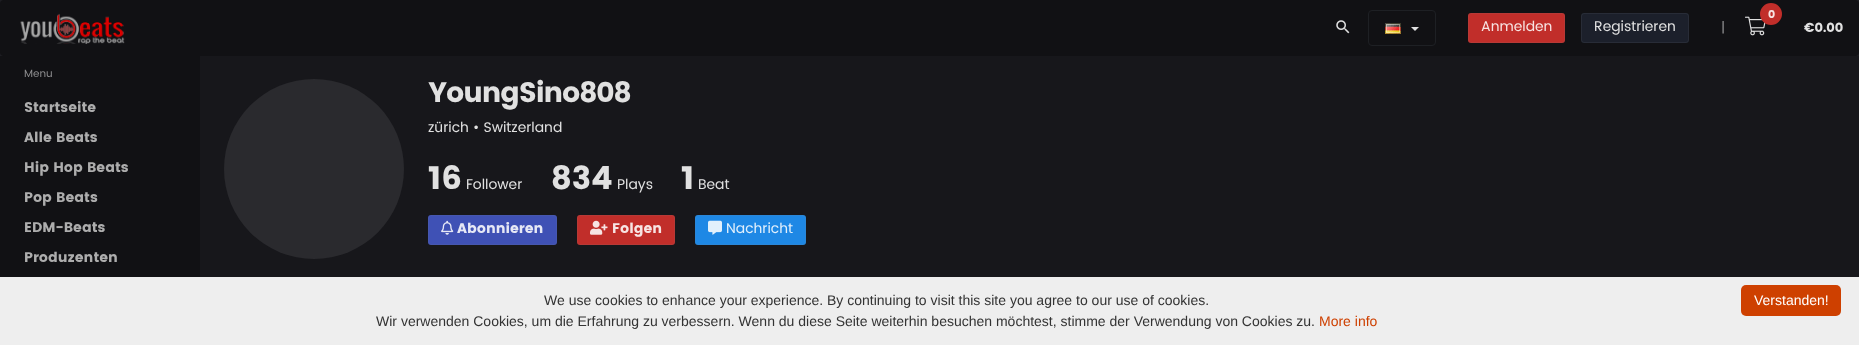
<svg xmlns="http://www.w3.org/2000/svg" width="1859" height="345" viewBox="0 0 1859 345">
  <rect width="100%" height="100%" fill="#17171b"/>
  <path d="M0 0h1859v56H0z" fill="#1d1d22"/>
  <rect width="1859" height="56" rx="4" fill="#111114"/>
  <image x="20" y="13" width="105" height="31" href="img/1.png"/>
  <image x="1336" y="20" width="14" height="14" href="img/2.png"/>
  <rect x="1368.5" y="10.5" width="67" height="35" rx="3.5" fill="none" stroke="#1e2024"/>
  <image x="1385" y="23" width="16" height="11" href="img/3.png"/>
  <path d="M1411 27H1419L1415 31Z" fill="#e0e0e0"/>
  <rect x="1468" y="13" width="97" height="30" rx="3" fill="#c12e2a"/>
  <rect x="1468.5" y="13.5" width="96" height="29" rx="2.5" fill="none" stroke="#78828c21"/>
  <rect x="1581" y="13" width="108" height="30" rx="3" fill="#1c202b"/>
  <rect x="1581.5" y="13.5" width="107" height="29" rx="2.5" fill="none" stroke="#78828c21"/>
  <image x="1745" y="16" width="21" height="20" href="img/4.png"/>
  <circle cx="1771" cy="14" r="11" fill="#c12e2a"/>
  <path d="M0 56h200v221H0z" fill="#111114"/>
  <circle cx="314" cy="169" r="90" fill="#2a2a2e"/>
  <rect x="428" y="215" width="129" height="30" rx="3" fill="#3f51b5"/>
  <rect x="428.5" y="215.5" width="128" height="29" rx="2.5" fill="none" stroke="#78828c21"/>
  <image x="441" y="220" width="13" height="15" href="img/5.png"/>
  <rect x="577" y="215" width="98" height="30" rx="3" fill="#c12e2a"/>
  <rect x="577.5" y="215.5" width="97" height="29" rx="2.5" fill="none" stroke="#78828c21"/>
  <image x="590" y="220" width="18" height="15" href="img/6.png"/>
  <rect x="695" y="215" width="111" height="30" rx="3" fill="#1e88e5"/>
  <rect x="695.5" y="215.5" width="110" height="29" rx="2.5" fill="none" stroke="#78828c21"/>
  <image x="708" y="220" width="14" height="15" href="img/7.png"/>
  <path d="M0 277h1859v68H0z" fill="#eee"/>
  <rect x="1741" y="285" width="100" height="31" rx="5" fill="#ce4000"/>
  <text x="1481" y="31" font-family="Poppins" font-size="14" fill="#f7e4e3">Anmelden</text>
  <text x="1594" y="31" font-family="Poppins" font-size="14" fill="#e1e1e1">Registrieren</text>
  <text x="1721" y="32" font-family="Poppins" font-size="14" fill="#8d8d8f">|</text>
  <text x="1768" y="18" font-family="Poppins" font-size="11" font-weight="bold" fill="#f7e4e3">0</text>
  <text x="1804" y="32" font-family="Poppins" font-size="13" font-weight="bold" fill="#e1e1e1">€0.00</text>
  <text x="24" y="77" font-family="Poppins" font-size="10.5" fill="#8d8d8f">Menu</text>
  <g font-family="Poppins" font-size="14" font-weight="bold" fill="#adadad">
    <text x="24" y="112">Startseite</text>
    <text x="24" y="142">Alle Beats</text>
    <text x="24" y="172">Hip Hop Beats</text>
    <text x="24" y="202">Pop Beats</text>
    <text x="24" y="232">EDM-Beats</text>
    <text x="24" y="262">Produzenten</text>
  </g>
  <text x="428" y="102" font-family="Poppins" font-size="28" font-weight="bold" letter-spacing="-1.1" fill="#e1e1e1">YoungSino808</text>
  <text x="428" y="132" font-family="Poppins" font-size="14" fill="#e1e1e1">zürich • Switzerland</text>
  <text x="428" y="189" font-family="Poppins" font-size="32" font-weight="bold" fill="#e1e1e1">16</text>
  <text x="466" y="189" font-family="Poppins" font-size="14" fill="#e1e1e1">Follower</text>
  <text x="551" y="189" font-family="Poppins" font-size="32" font-weight="bold" fill="#e1e1e1">834</text>
  <text x="617" y="189" font-family="Poppins" font-size="14" fill="#e1e1e1">Plays</text>
  <text x="681" y="189" font-family="Poppins" font-size="32" font-weight="bold" fill="#e1e1e1">1</text>
  <text x="698" y="189" font-family="Poppins" font-size="14" fill="#e1e1e1">Beat</text>
  <text x="457" y="233" font-family="Poppins" font-size="14" font-weight="bold" fill="#e6e8f5">Abonnieren</text>
  <text x="612" y="233" font-family="Poppins" font-size="14" font-weight="bold" fill="#f7e4e3">Folgen</text>
  <text x="726" y="233" font-family="Poppins" font-size="14" fill="#e2f0fc">Nachricht</text>
  <g font-family="Liberation Sans" font-size="14" fill="#333">
    <text x="544" y="305">We use cookies to enhance your experience. By continuing to visit this site you agree to our use of cookies.</text>
    <text x="376" y="326">Wir verwenden Cookies, um die Erfahrung zu verbessern. Wenn du diese Seite weiterhin besuchen möchtest, stimme der Verwendung von Cookies zu.</text>
  </g>
  <text x="1319" y="326" font-family="Liberation Sans" font-size="14" fill="#ce4000">More info</text>
  <text x="1754" y="305" font-family="Liberation Sans" font-size="14" fill="#fff">Verstanden!</text>
</svg>
